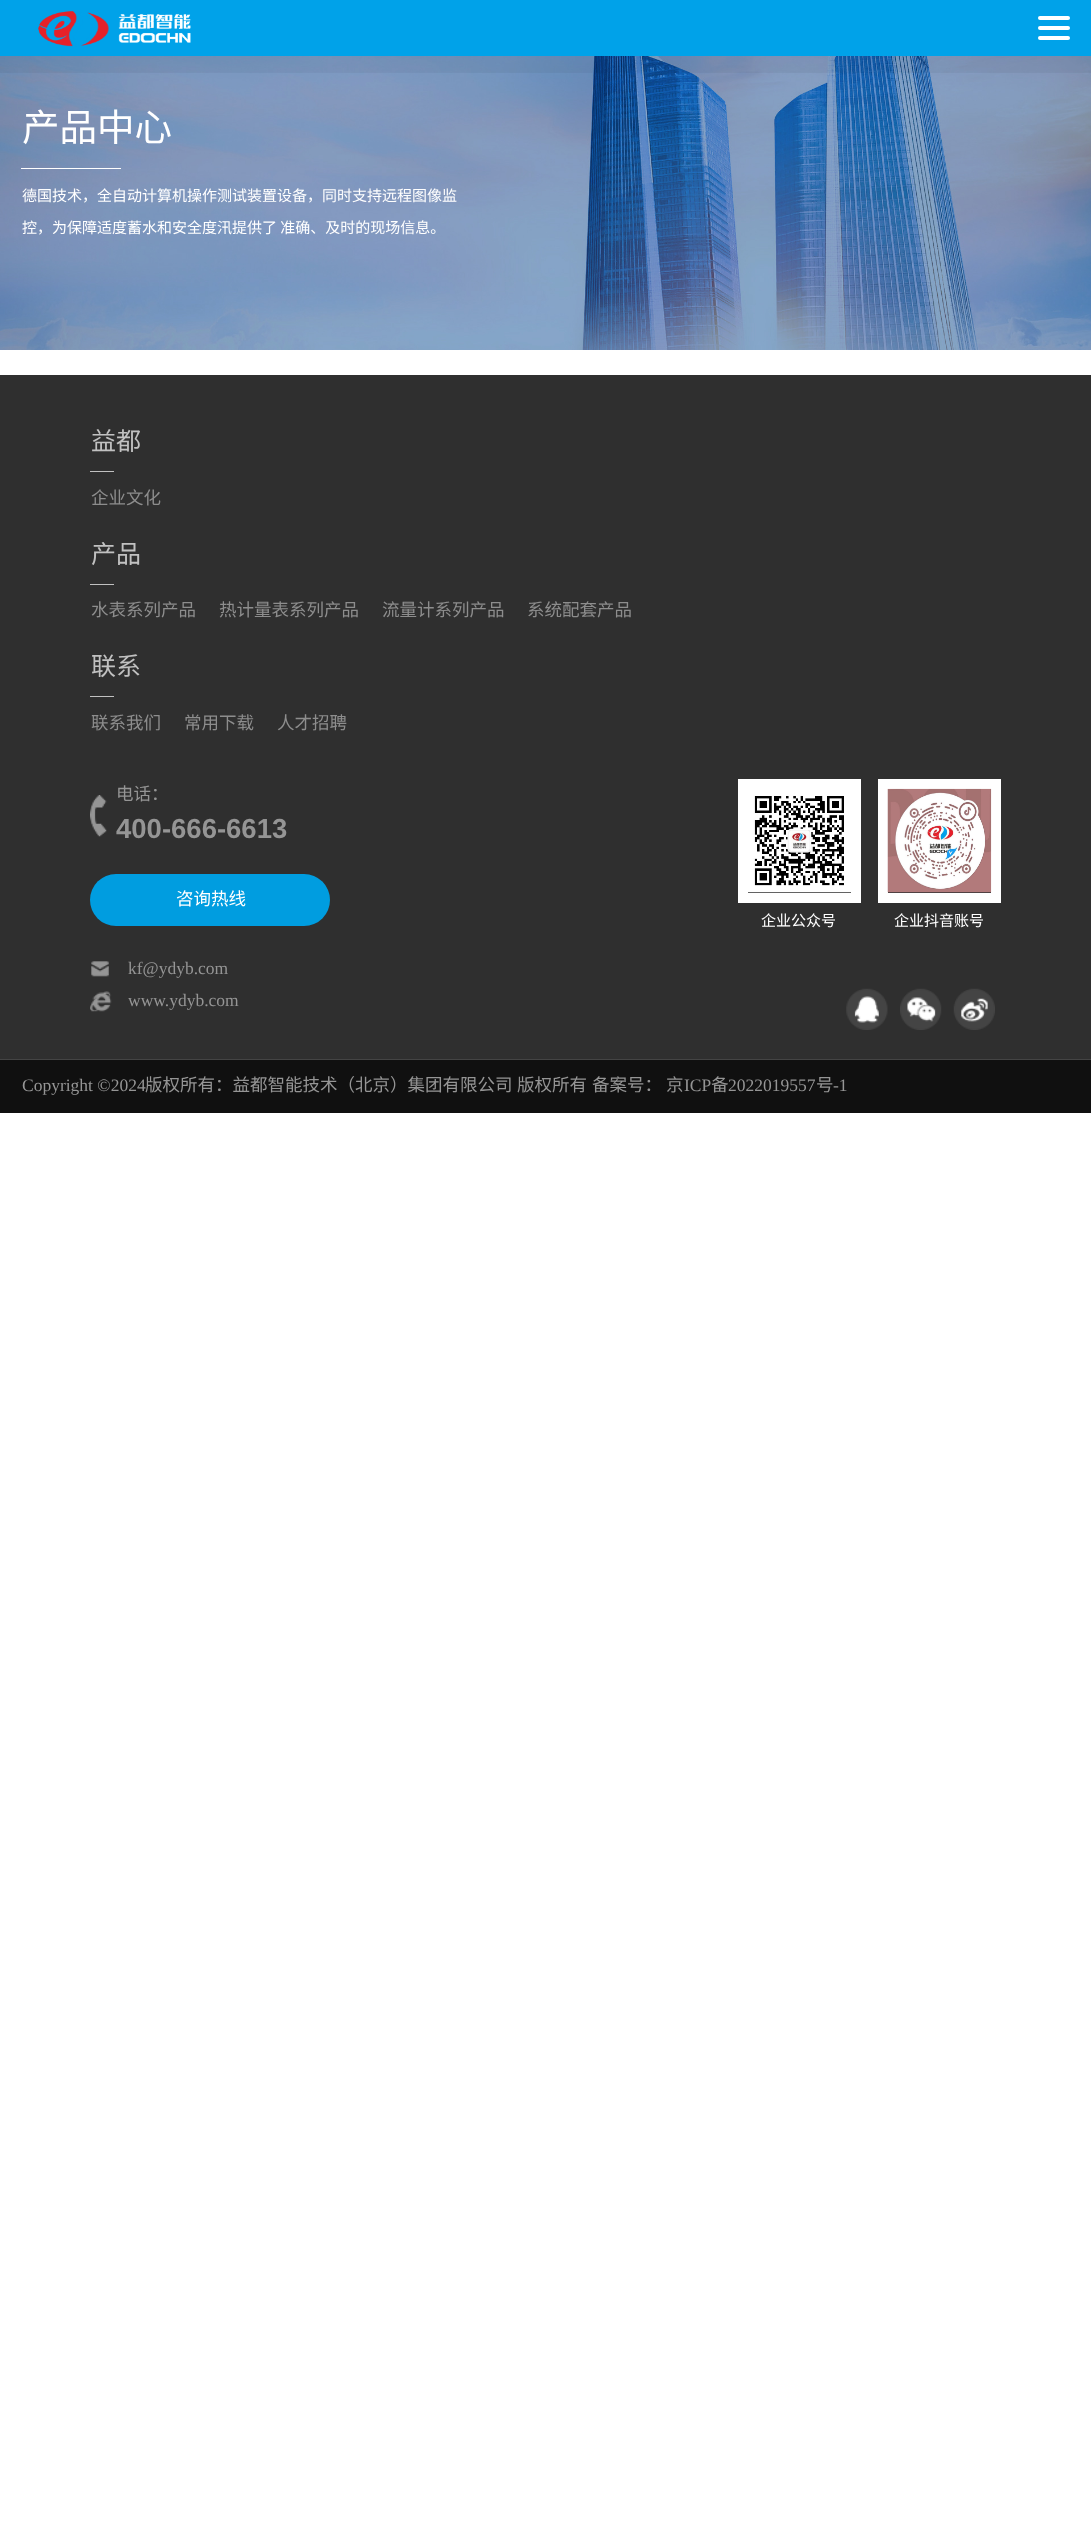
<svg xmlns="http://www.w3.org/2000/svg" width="1091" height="2544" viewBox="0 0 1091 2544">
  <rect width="100%" height="100%" fill="#fff"/>
  <path d="M0 0h1091v56H0z" fill="#00a2e9"/>
  <image x="38" y="11" width="153" height="36" href="img/1.png"/>
  <rect x="1038" y="16" width="32" height="4" rx="2" fill="#fff"/>
  <rect x="1038" y="26" width="32" height="4" rx="2" fill="#fff"/>
  <rect x="1038" y="36" width="32" height="4" rx="2" fill="#fff"/>
  <image x="0" y="56" width="1091" height="294" href="img/2.png"/>
  <path d="M21 168h100v1H21z" fill="#fff"/>
  <path d="M0 375h1091v684H0z" fill="#2f2f2f"/>
  <path d="M0 1059h1091v1H0z" fill="#444"/>
  <path d="M90 471h24v1H90z" fill="#c1c1c1"/>
  <path d="M90 584h24v1H90z" fill="#c1c1c1"/>
  <path d="M90 696h24v1H90z" fill="#c1c1c1"/>
  <image x="90" y="795" width="17" height="42" href="img/3.png"/>
  <rect x="90" y="874" width="240" height="52" rx="26" fill="#009de0"/>
  <image x="91" y="961" width="18" height="16" href="img/4.png"/>
  <image x="90" y="991" width="22" height="21" href="img/5.png"/>
  <path d="M743 784h113v114H743z" fill="none" stroke="#fff" stroke-width="10"/>
  <image x="748" y="789" width="103" height="104" href="img/6.png"/>
  <path d="M883 784h113v114H883z" fill="none" stroke="#fff" stroke-width="10"/>
  <image x="887" y="788" width="105" height="105" href="img/7.png"/>
  <image x="846" y="988" width="42" height="42" href="img/8.png"/>
  <image x="900" y="988" width="42" height="42" href="img/9.png"/>
  <image x="953" y="988" width="42" height="42" href="img/10.png"/>
  <path d="M0 1060h1091v53H0z" fill="#101010"/>
  <text x="22" y="141" font-family="Noto Sans CJK SC" font-size="37.5" fill="#fff">产品中心</text>
  <g font-family="Noto Sans CJK SC" font-size="15" fill="#fff">
    <text x="22" y="201">德国技术，全自动计算机操作测试装置设备，同时支持远程图像监</text>
    <text x="22" y="233">控，为保障适度蓄水和安全度汛提供了 准确、及时的现场信息。</text>
  </g>
  <text x="91" y="450" font-family="Noto Sans CJK SC" font-size="25" fill="#c1c1c1">益都</text>
  <text x="91" y="504" font-family="Noto Sans CJK SC" font-size="17.5" fill="#8d8d8d">企业文化</text>
  <text x="91" y="563" font-family="Noto Sans CJK SC" font-size="25" fill="#c1c1c1">产品</text>
  <g font-family="Noto Sans CJK SC" font-size="17.5" fill="#8d8d8d">
    <text x="91" y="616">水表系列产品</text>
    <text x="219" y="616">热计量表系列产品</text>
    <text x="382" y="616">流量计系列产品</text>
    <text x="527" y="616">系统配套产品</text>
  </g>
  <text x="91" y="675" font-family="Noto Sans CJK SC" font-size="25" fill="#c1c1c1">联系</text>
  <g font-family="Noto Sans CJK SC" font-size="17.5" fill="#8d8d8d">
    <text x="91" y="729">联系我们</text>
    <text x="184" y="729">常用下载</text>
    <text x="277" y="729">人才招聘</text>
  </g>
  <text x="116" y="800" font-family="Noto Sans CJK SC" font-size="17.5" fill="#959595">电话：</text>
  <text x="116" y="838" font-family="Liberation Sans" font-size="27.5" font-weight="bold" fill="#959595">400-666-6613</text>
  <text x="176" y="905" font-family="Noto Sans CJK SC" font-size="17.5" fill="#fff">咨询热线</text>
  <g font-family="Liberation Serif" font-size="17.5" fill="#959595">
    <text x="128" y="974">kf@ydyb.com</text>
    <text x="128" y="1006">www.ydyb.com</text>
  </g>
  <g font-family="Noto Sans CJK SC" font-size="15" fill="#fff">
    <text x="761" y="926">企业公众号</text>
    <text x="894" y="926">企业抖音账号</text>
  </g>
  <text x="22" y="1091" font-family="Liberation Serif" font-size="17.5" fill="#959595">Copyright ©2024</text>
  <g font-family="Noto Sans CJK SC" font-size="17.5" fill="#959595">
    <text x="145" y="1091">版权所有：益都智能技术（北京）集团有限公司</text>
    <text x="517" y="1091">版权所有</text>
    <text x="592" y="1091">备案号：</text>
    <text x="666" y="1091">京</text>
  </g>
  <text x="684" y="1091" font-family="Liberation Serif" font-size="17.5" fill="#959595">ICP</text>
  <text x="711" y="1091" font-family="Noto Sans CJK SC" font-size="17.5" fill="#959595">备</text>
  <text x="728" y="1091" font-family="Liberation Serif" font-size="17.5" fill="#959595">2022019557</text>
  <text x="816" y="1091" font-family="Noto Sans CJK SC" font-size="17.5" fill="#959595">号</text>
  <text x="833" y="1091" font-family="Liberation Serif" font-size="17.5" fill="#959595">-1</text>
</svg>
